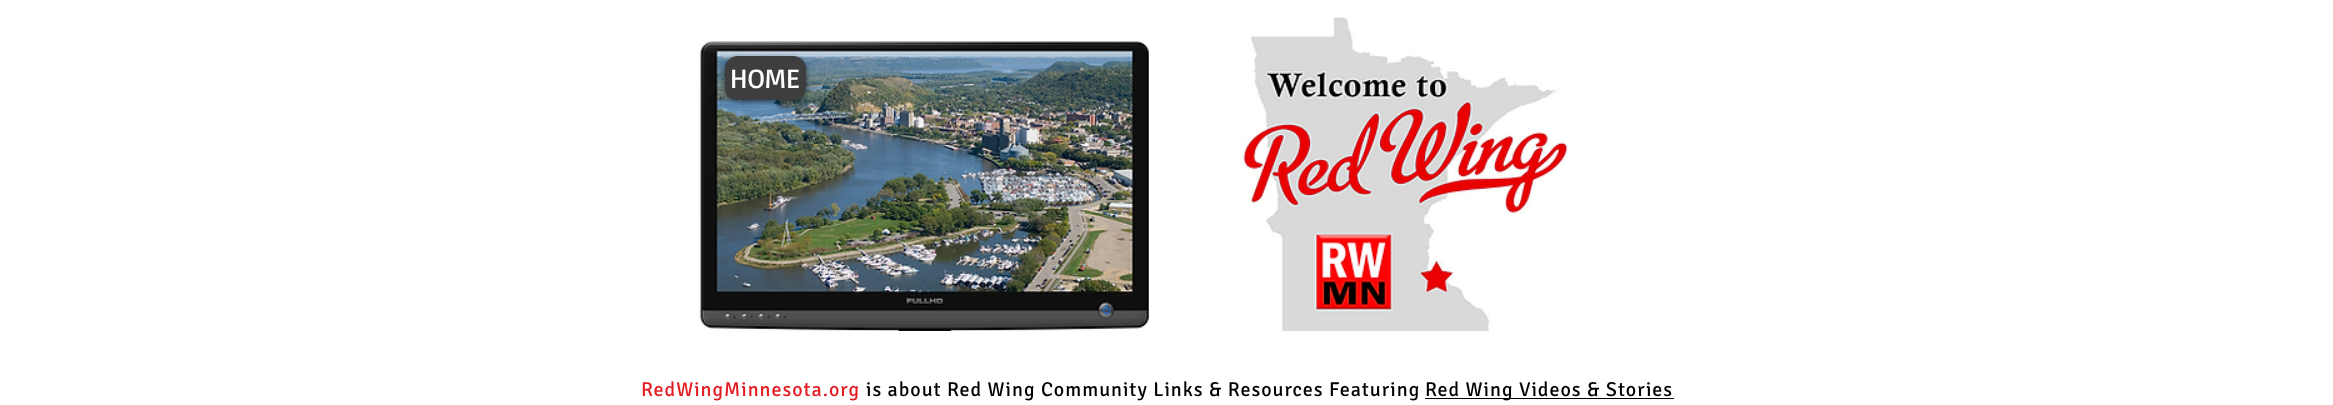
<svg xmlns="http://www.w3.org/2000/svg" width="2333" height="405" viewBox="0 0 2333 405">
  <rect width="100%" height="100%" fill="#fff"/>
  <image x="699" y="41" width="450" height="290" href="img/1.png"/>
  <image x="1241" y="17" width="328" height="314" href="img/2.png"/>
  <rect x="725" y="58" width="81" height="43" rx="13" fill="#00000099" filter="blur(2.5px)"/>
  <rect x="725" y="56" width="81" height="44" rx="13" fill="#3e3e3e"/>
  <path d="M1425 398h249v1H1425z" fill="#000"/>
  <text x="730" y="88" font-family="Basic" font-size="27.5" fill="#fff">HOME</text>
  <text x="641" y="396" font-family="Signika" font-size="20" letter-spacing="1" fill="#e21c21">RedWingMinnesota.org</text>
  <g font-family="Signika" font-size="20" letter-spacing="1" fill="#000">
    <text x="866" y="396">is about Red Wing Community Links &amp; Resources Featuring</text>
    <text x="1425" y="396">Red Wing Videos &amp; Stories</text>
  </g>
</svg>
